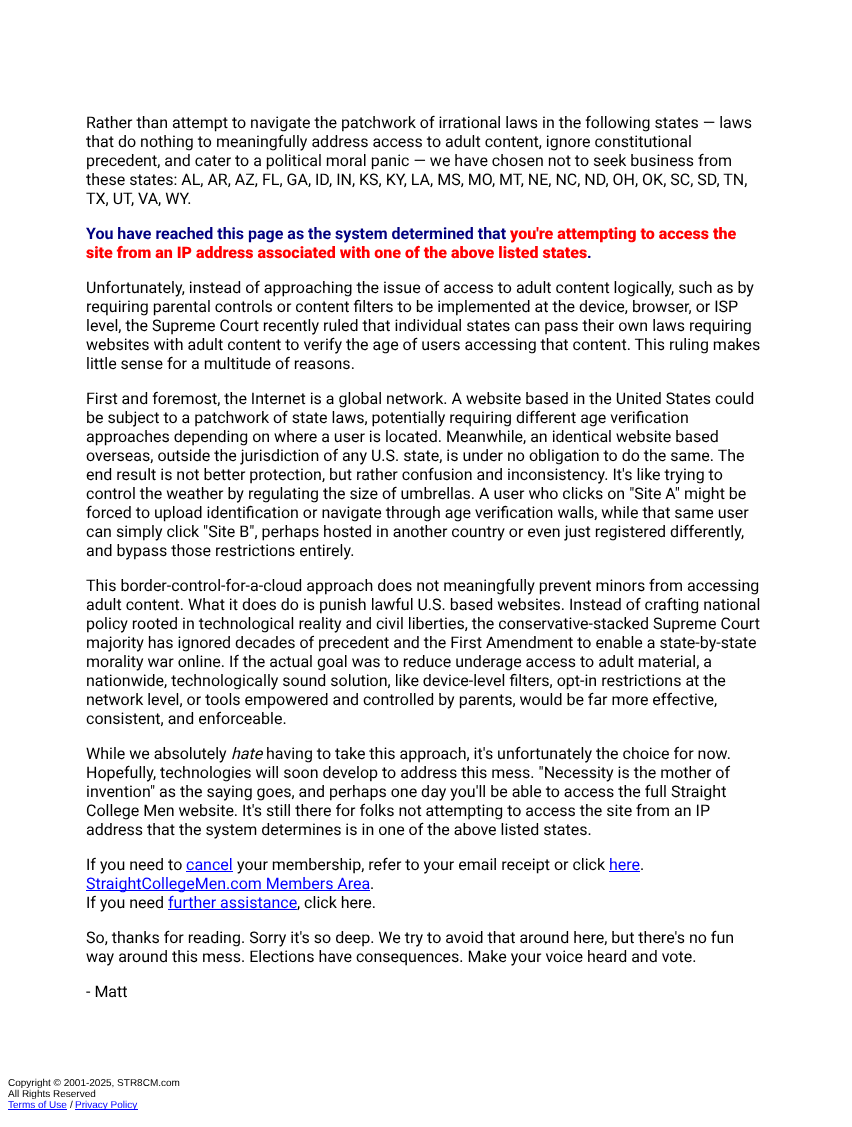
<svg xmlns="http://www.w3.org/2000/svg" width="852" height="1127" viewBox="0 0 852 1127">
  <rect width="100%" height="100%" fill="#fff"/>
  <path d="M186 871h47v1H186z" fill="#00f"/>
  <path d="M609 871h31v1H609z" fill="#00f"/>
  <path d="M86 890h284v1H86z" fill="#00f"/>
  <path d="M168 909h129v1H168z" fill="#00f"/>
  <path d="M8 1109h59v1H8z" fill="#00f"/>
  <path d="M75 1109h63v1H75z" fill="#00f"/>
  <g font-family="Roboto" font-size="16" fill="#000">
    <text x="86" y="128">Rather than attempt to navigate the patchwork of irrational laws in the following states — laws</text>
    <text x="86" y="147">that do nothing to meaningfully address access to adult content, ignore constitutional</text>
    <text x="86" y="166">precedent, and cater to a political moral panic — we have chosen not to seek business from</text>
    <text x="86" y="185">these states: AL, AR, AZ, FL, GA, ID, IN, KS, KY, LA, MS, MO, MT, NE, NC, ND, OH, OK, SC, SD, TN,</text>
    <text x="86" y="204">TX, UT, VA, WY.</text>
  </g>
  <text x="86" y="239" font-family="Roboto" font-size="16" font-weight="bold" fill="#000080">You have reached this page as the system determined that</text>
  <g font-family="Roboto" font-size="16" font-weight="900" fill="#f00">
    <text x="510" y="239">you're attempting to access the</text>
    <text x="86" y="258">site from an IP address associated with one of the above listed states</text>
  </g>
  <text x="587" y="258" font-family="Roboto" font-size="16" font-weight="bold" fill="#000080">.</text>
  <g font-family="Roboto" font-size="16" fill="#000">
    <text x="86" y="293">Unfortunately, instead of approaching the issue of access to adult content logically, such as by</text>
    <text x="86" y="312">requiring parental controls or content filters to be implemented at the device, browser, or ISP</text>
    <text x="86" y="331">level, the Supreme Court recently ruled that individual states can pass their own laws requiring</text>
    <text x="86" y="350">websites with adult content to verify the age of users accessing that content. This ruling makes</text>
    <text x="86" y="369">little sense for a multitude of reasons.</text>
    <text x="86" y="404">First and foremost, the Internet is a global network. A website based in the United States could</text>
    <text x="86" y="423">be subject to a patchwork of state laws, potentially requiring different age verification</text>
    <text x="86" y="442">approaches depending on where a user is located. Meanwhile, an identical website based</text>
    <text x="86" y="461">overseas, outside the jurisdiction of any U.S. state, is under no obligation to do the same. The</text>
    <text x="86" y="480">end result is not better protection, but rather confusion and inconsistency. It's like trying to</text>
    <text x="86" y="499">control the weather by regulating the size of umbrellas. A user who clicks on "Site A" might be</text>
    <text x="86" y="518">forced to upload identification or navigate through age verification walls, while that same user</text>
    <text x="86" y="537">can simply click "Site B", perhaps hosted in another country or even just registered differently,</text>
    <text x="86" y="556">and bypass those restrictions entirely.</text>
    <text x="86" y="591">This border-control-for-a-cloud approach does not meaningfully prevent minors from accessing</text>
    <text x="86" y="610">adult content. What it does do is punish lawful U.S. based websites. Instead of crafting national</text>
    <text x="86" y="629">policy rooted in technological reality and civil liberties, the conservative-stacked Supreme Court</text>
    <text x="86" y="648">majority has ignored decades of precedent and the First Amendment to enable a state-by-state</text>
    <text x="86" y="667">morality war online. If the actual goal was to reduce underage access to adult material, a</text>
    <text x="86" y="686">nationwide, technologically sound solution, like device-level filters, opt-in restrictions at the</text>
    <text x="86" y="705">network level, or tools empowered and controlled by parents, would be far more effective,</text>
    <text x="86" y="724">consistent, and enforceable.</text>
    <text x="86" y="759">While we absolutely</text>
  </g>
  <text x="231" y="759" font-family="Roboto" font-size="16" font-style="italic" fill="#000">hate</text>
  <g font-family="Roboto" font-size="16" fill="#000">
    <text x="266" y="759">having to take this approach, it's unfortunately the choice for now.</text>
    <text x="86" y="778">Hopefully, technologies will soon develop to address this mess. "Necessity is the mother of</text>
    <text x="86" y="797">invention" as the saying goes, and perhaps one day you'll be able to access the full Straight</text>
    <text x="86" y="816">College Men website. It's still there for folks not attempting to access the site from an IP</text>
    <text x="86" y="835">address that the system determines is in one of the above listed states.</text>
    <text x="86" y="870">If you need to</text>
  </g>
  <text x="186" y="870" font-family="Roboto" font-size="16" fill="#00f">cancel</text>
  <text x="237" y="870" font-family="Roboto" font-size="16" fill="#000">your membership, refer to your email receipt or click</text>
  <text x="609" y="870" font-family="Roboto" font-size="16" fill="#00f">here</text>
  <text x="640" y="870" font-family="Roboto" font-size="16" fill="#000">.</text>
  <text x="86" y="889" font-family="Roboto" font-size="16" fill="#00f">StraightCollegeMen.com Members Area</text>
  <g font-family="Roboto" font-size="16" fill="#000">
    <text x="370" y="889">.</text>
    <text x="86" y="908">If you need</text>
  </g>
  <text x="168" y="908" font-family="Roboto" font-size="16" fill="#00f">further assistance</text>
  <g font-family="Roboto" font-size="16" fill="#000">
    <text x="297" y="908">, click here.</text>
    <text x="86" y="943">So, thanks for reading. Sorry it's so deep. We try to avoid that around here, but there's no fun</text>
    <text x="86" y="962">way around this mess. Elections have consequences. Make your voice heard and vote.</text>
    <text x="86" y="997">- Matt</text>
  </g>
  <g font-family="Liberation Sans" font-size="10" fill="#000">
    <text x="8" y="1086">Copyright © 2001-2025, STR8CM.com</text>
    <text x="8" y="1097">All Rights Reserved</text>
  </g>
  <text x="8" y="1108" font-family="Liberation Sans" font-size="10" fill="#00f">Terms of Use</text>
  <text x="70" y="1108" font-family="Liberation Sans" font-size="10" fill="#000">/</text>
  <text x="75" y="1108" font-family="Liberation Sans" font-size="10" fill="#00f">Privacy Policy</text>
</svg>
